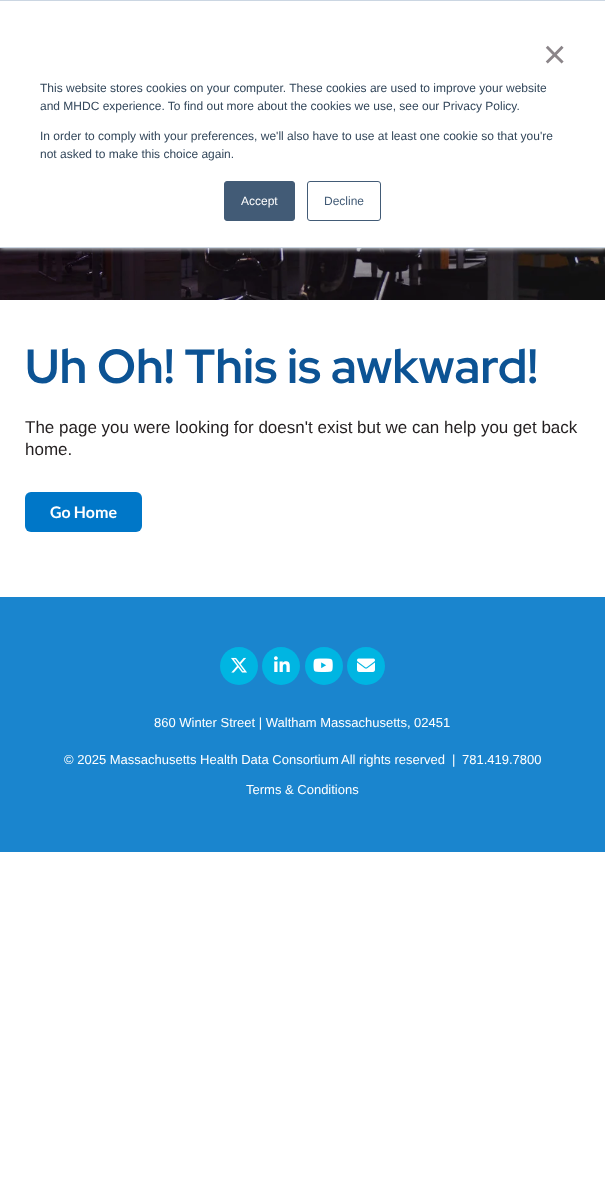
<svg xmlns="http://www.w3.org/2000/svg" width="605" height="1180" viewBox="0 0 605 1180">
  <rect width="100%" height="100%" fill="#fff"/>
  <image x="0" y="248" width="605" height="52" href="img/1.png"/>
  <path d="M0 1h605v248H0z" fill="#eaf0f6" filter="blur(2.5px)"/>
  <path d="M0 1h605v246H0z" fill="#fff"/>
  <path d="M0 0h605v1H0z" fill="#cbd6e2"/>
  <path d="M0 247h605v1H0z" fill="#cbd6e2"/>
  <rect x="224.5" y="181.5" width="70" height="39" rx="2.5" fill="#425b76" stroke="#425b76"/>
  <rect x="307.5" y="181.5" width="73" height="39" rx="2.5" fill="none" stroke="#425b76"/>
  <rect x="25" y="492" width="117" height="40" rx="6" fill="#0077c8"/>
  <path d="M0 597h605v255H0z" fill="#1a85ce"/>
  <circle cx="239" cy="666" r="19" fill="#00b5e2"/>
  <image x="231" y="657" width="16" height="16" href="img/2.png"/>
  <circle cx="281" cy="666" r="19" fill="#00b5e2"/>
  <image x="274" y="656" width="16" height="16" href="img/3.png"/>
  <circle cx="324" cy="666" r="19" fill="#00b5e2"/>
  <image x="313" y="658" width="20" height="14" href="img/4.png"/>
  <circle cx="366" cy="666" r="19" fill="#00b5e2"/>
  <image x="357" y="658" width="18" height="14" href="img/5.png"/>
  <text x="543" y="68" font-family="Liberation Sans" font-size="40" fill="#8b8589">×</text>
  <g font-family="Liberation Sans" font-size="12" fill="#33475b">
    <text x="40" y="92">This website stores cookies on your computer. These cookies are used to improve your website</text>
    <text x="40" y="110">and MHDC experience. To find out more about the cookies we use, see our Privacy Policy.</text>
    <text x="40" y="140">In order to comply with your preferences, we'll also have to use at least one cookie so that you're</text>
    <text x="40" y="158">not asked to make this choice again.</text>
  </g>
  <text x="241" y="205" font-family="Liberation Sans" font-size="12" fill="#fff">Accept</text>
  <text x="324" y="205" font-family="Liberation Sans" font-size="12" fill="#425b76">Decline</text>
  <text x="25" y="383" font-family="Red Hat Display" font-size="48" font-weight="bold" fill="#0c5394">Uh Oh! This is awkward!</text>
  <g font-family="Liberation Sans" font-size="17" fill="#231f20">
    <text x="25" y="433">The page you were looking for doesn't exist but we can help you get back</text>
    <text x="25" y="455">home.</text>
  </g>
  <text x="50" y="518" font-family="Lato" font-size="16" font-weight="bold" fill="#fff">Go Home</text>
  <g font-family="Liberation Sans" font-size="13" fill="#fff">
    <text x="154" y="727">860 Winter Street | Waltham Massachusetts, 02451</text>
    <text x="64" y="764">© 2025 Massachusetts Health Data Consortium</text>
    <text x="341" y="764">All rights reserved</text>
    <text x="452" y="764">|</text>
    <text x="462" y="764">781.419.7800</text>
    <text x="246" y="794">Terms &amp; Conditions</text>
  </g>
</svg>
